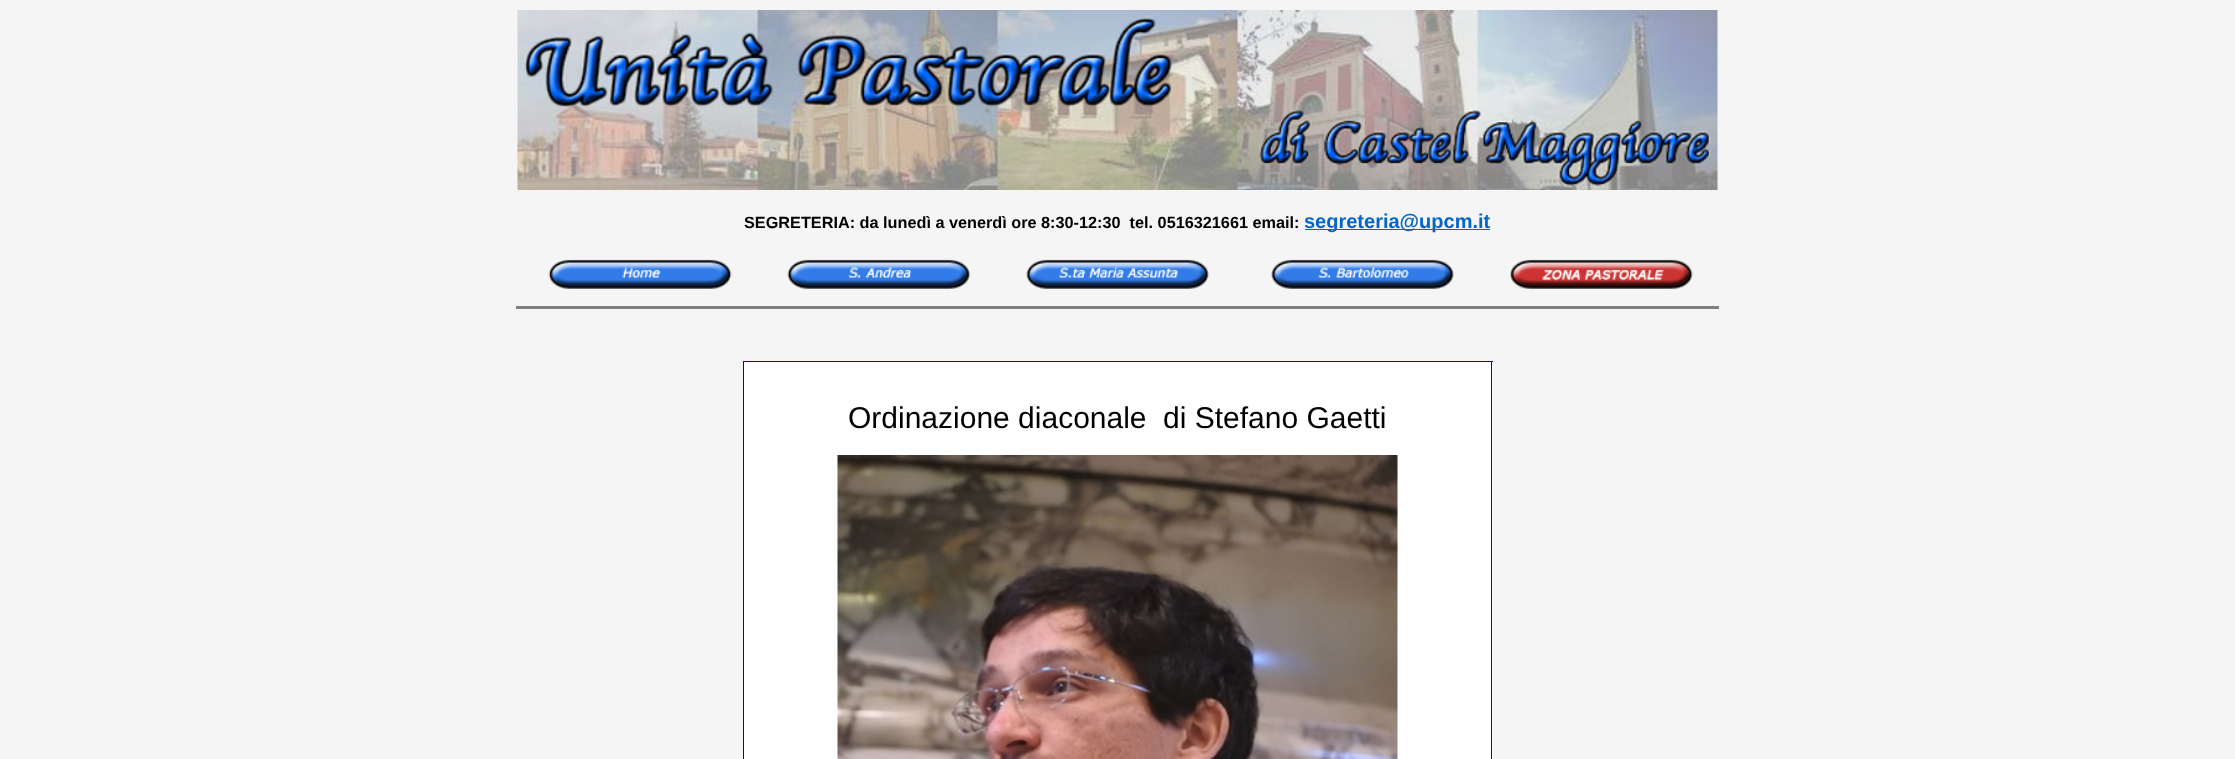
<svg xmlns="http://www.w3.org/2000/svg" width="2235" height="759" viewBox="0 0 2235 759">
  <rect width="100%" height="100%" fill="#f5f5f5"/>
  <image x="517" y="10" width="1201" height="180" href="img/1.png"/>
  <path d="M1305 229h185v1H1305z" fill="#06c"/>
  <image x="548" y="259" width="184" height="30" href="img/2.png"/>
  <image x="787" y="259" width="184" height="30" href="img/3.png"/>
  <image x="1026" y="259" width="183" height="30" href="img/4.png"/>
  <image x="1271" y="259" width="183" height="30" href="img/5.png"/>
  <image x="1510" y="259" width="183" height="30" href="img/6.png"/>
  <path d="M516 306h1203v3H516z" fill="#808080"/>
  <path d="M744 362h749v397H744z" fill="#fff"/>
  <path d="M743 361h750v1H743z" fill="#306"/>
  <path d="M1491 361h1v398H1491z" fill="#306"/>
  <path d="M743 361h1v398H743z" fill="#306"/>
  <image x="837" y="455" width="561" height="304" href="img/7.png"/>
  <text x="744" y="228" font-family="Liberation Sans" font-size="16.25" font-weight="bold" fill="#000" xml:space="preserve">SEGRETERIA: da lunedì a venerdì ore 8:30-12:30  tel. 0516321661 email:</text>
  <text x="1304" y="228" font-family="Liberation Sans" font-size="20" font-weight="bold" fill="#06c">segreteria@upcm.it</text>
  <g font-family="Liberation Sans" font-size="30" fill="#000">
    <text x="848" y="428">Ordinazione diaconale</text>
    <text x="1163" y="428">di Stefano Gaetti</text>
  </g>
</svg>
